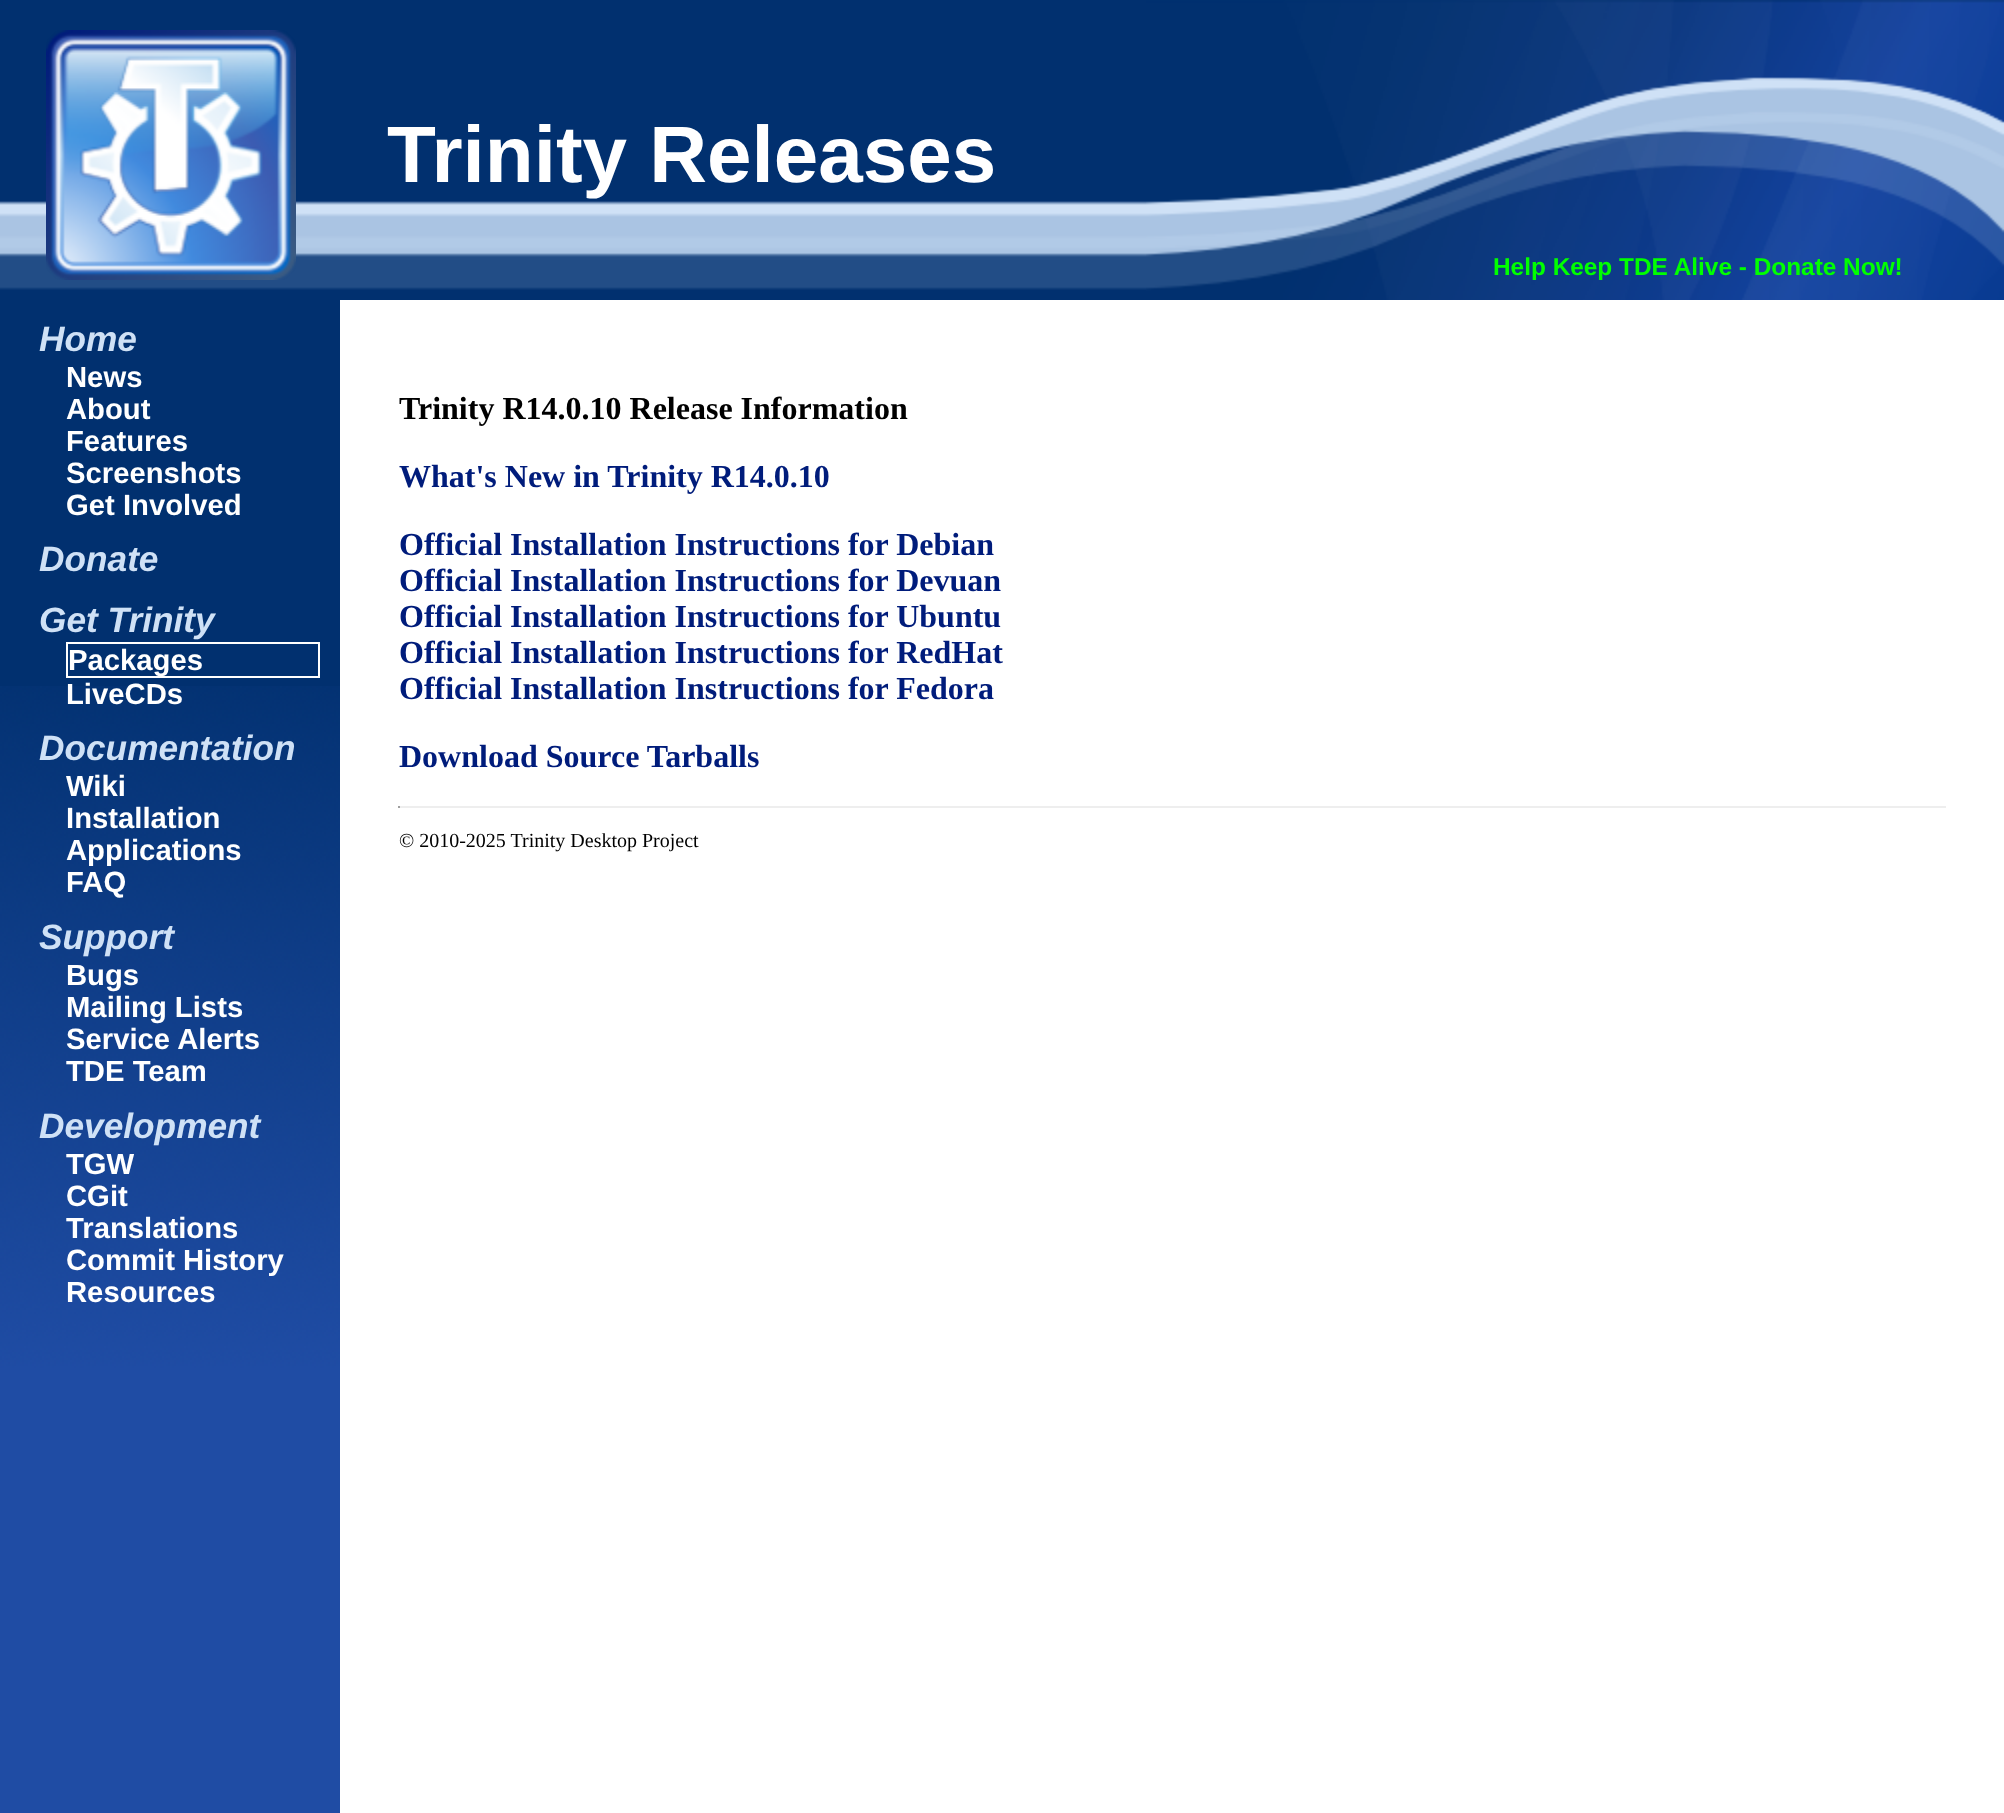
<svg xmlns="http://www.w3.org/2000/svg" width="2004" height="1813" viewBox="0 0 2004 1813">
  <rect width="100%" height="100%" fill="#fff"/>
  <path d="M0 1370h340v443H0z" fill="#1f4ca4"/>
  <path d="M0 0h2004v300H0z" fill="#01306f"/>
  <image x="0" y="201" width="1146" height="89" href="img/1.png"/>
  <image x="46" y="30" width="250" height="250" href="img/2.png"/>
  <image x="1146" y="0" width="858" height="300" href="img/3.png"/>
  <path d="M0 300h340v386H0z" fill="#01306f"/>
  <image x="0" y="686" width="340" height="684" href="img/4.png"/>
  <path d="M67 643h252v34H67z" fill="none" stroke="#fff" stroke-width="2"/>
  <path d="M398 806h1548v2H398z" fill="#eee"/>
  <path d="M398 806h2v2H398z" fill="#9f9f9f"/>
  <text x="387" y="182" font-family="Liberation Sans" font-size="80" font-weight="bold" fill="#fff">Trinity Releases</text>
  <text x="1493" y="275" font-family="Liberation Sans" font-size="24.4" font-weight="bold" fill="#0f0">Help Keep TDE Alive - Donate Now!</text>
  <text x="39" y="351" font-family="Liberation Sans" font-size="35.25" font-weight="bold" font-style="italic" fill="#cfe1f6">Home</text>
  <g font-family="Liberation Sans" font-size="29.25" font-weight="bold" fill="#fff">
    <text x="66" y="387">News</text>
    <text x="66" y="419">About</text>
    <text x="66" y="451">Features</text>
    <text x="66" y="483">Screenshots</text>
    <text x="66" y="515">Get Involved</text>
  </g>
  <g font-family="Liberation Sans" font-size="35.25" font-weight="bold" font-style="italic" fill="#cfe1f6">
    <text x="39" y="571">Donate</text>
    <text x="39" y="632">Get Trinity</text>
  </g>
  <g font-family="Liberation Sans" font-size="29.25" font-weight="bold" fill="#fff">
    <text x="68" y="670">Packages</text>
    <text x="66" y="704">LiveCDs</text>
  </g>
  <text x="39" y="760" font-family="Liberation Sans" font-size="35.25" font-weight="bold" font-style="italic" fill="#cfe1f6">Documentation</text>
  <g font-family="Liberation Sans" font-size="29.25" font-weight="bold" fill="#fff">
    <text x="66" y="796">Wiki</text>
    <text x="66" y="828">Installation</text>
    <text x="66" y="860">Applications</text>
    <text x="66" y="892">FAQ</text>
  </g>
  <text x="39" y="949" font-family="Liberation Sans" font-size="35.25" font-weight="bold" font-style="italic" fill="#cfe1f6">Support</text>
  <g font-family="Liberation Sans" font-size="29.25" font-weight="bold" fill="#fff">
    <text x="66" y="985">Bugs</text>
    <text x="66" y="1017">Mailing Lists</text>
    <text x="66" y="1049">Service Alerts</text>
    <text x="66" y="1081">TDE Team</text>
  </g>
  <text x="39" y="1138" font-family="Liberation Sans" font-size="35.25" font-weight="bold" font-style="italic" fill="#cfe1f6">Development</text>
  <g font-family="Liberation Sans" font-size="29.25" font-weight="bold" fill="#fff">
    <text x="66" y="1174">TGW</text>
    <text x="66" y="1206">CGit</text>
    <text x="66" y="1238">Translations</text>
    <text x="66" y="1270">Commit History</text>
    <text x="66" y="1302">Resources</text>
  </g>
  <text x="399" y="419" font-family="Liberation Serif" font-size="32" font-weight="bold" fill="#000">Trinity R14.0.10 Release Information</text>
  <g font-family="Liberation Serif" font-size="32" font-weight="bold" fill="#001c7b">
    <text x="399" y="487">What's New in Trinity R14.0.10</text>
    <text x="399" y="555">Official Installation Instructions for Debian</text>
    <text x="399" y="591">Official Installation Instructions for Devuan</text>
    <text x="399" y="627">Official Installation Instructions for Ubuntu</text>
    <text x="399" y="663">Official Installation Instructions for RedHat</text>
    <text x="399" y="699">Official Installation Instructions for Fedora</text>
    <text x="399" y="767">Download Source Tarballs</text>
  </g>
  <text x="399" y="847" font-family="Liberation Serif" font-size="20" fill="#000">© 2010-2025 Trinity Desktop Project</text>
</svg>
